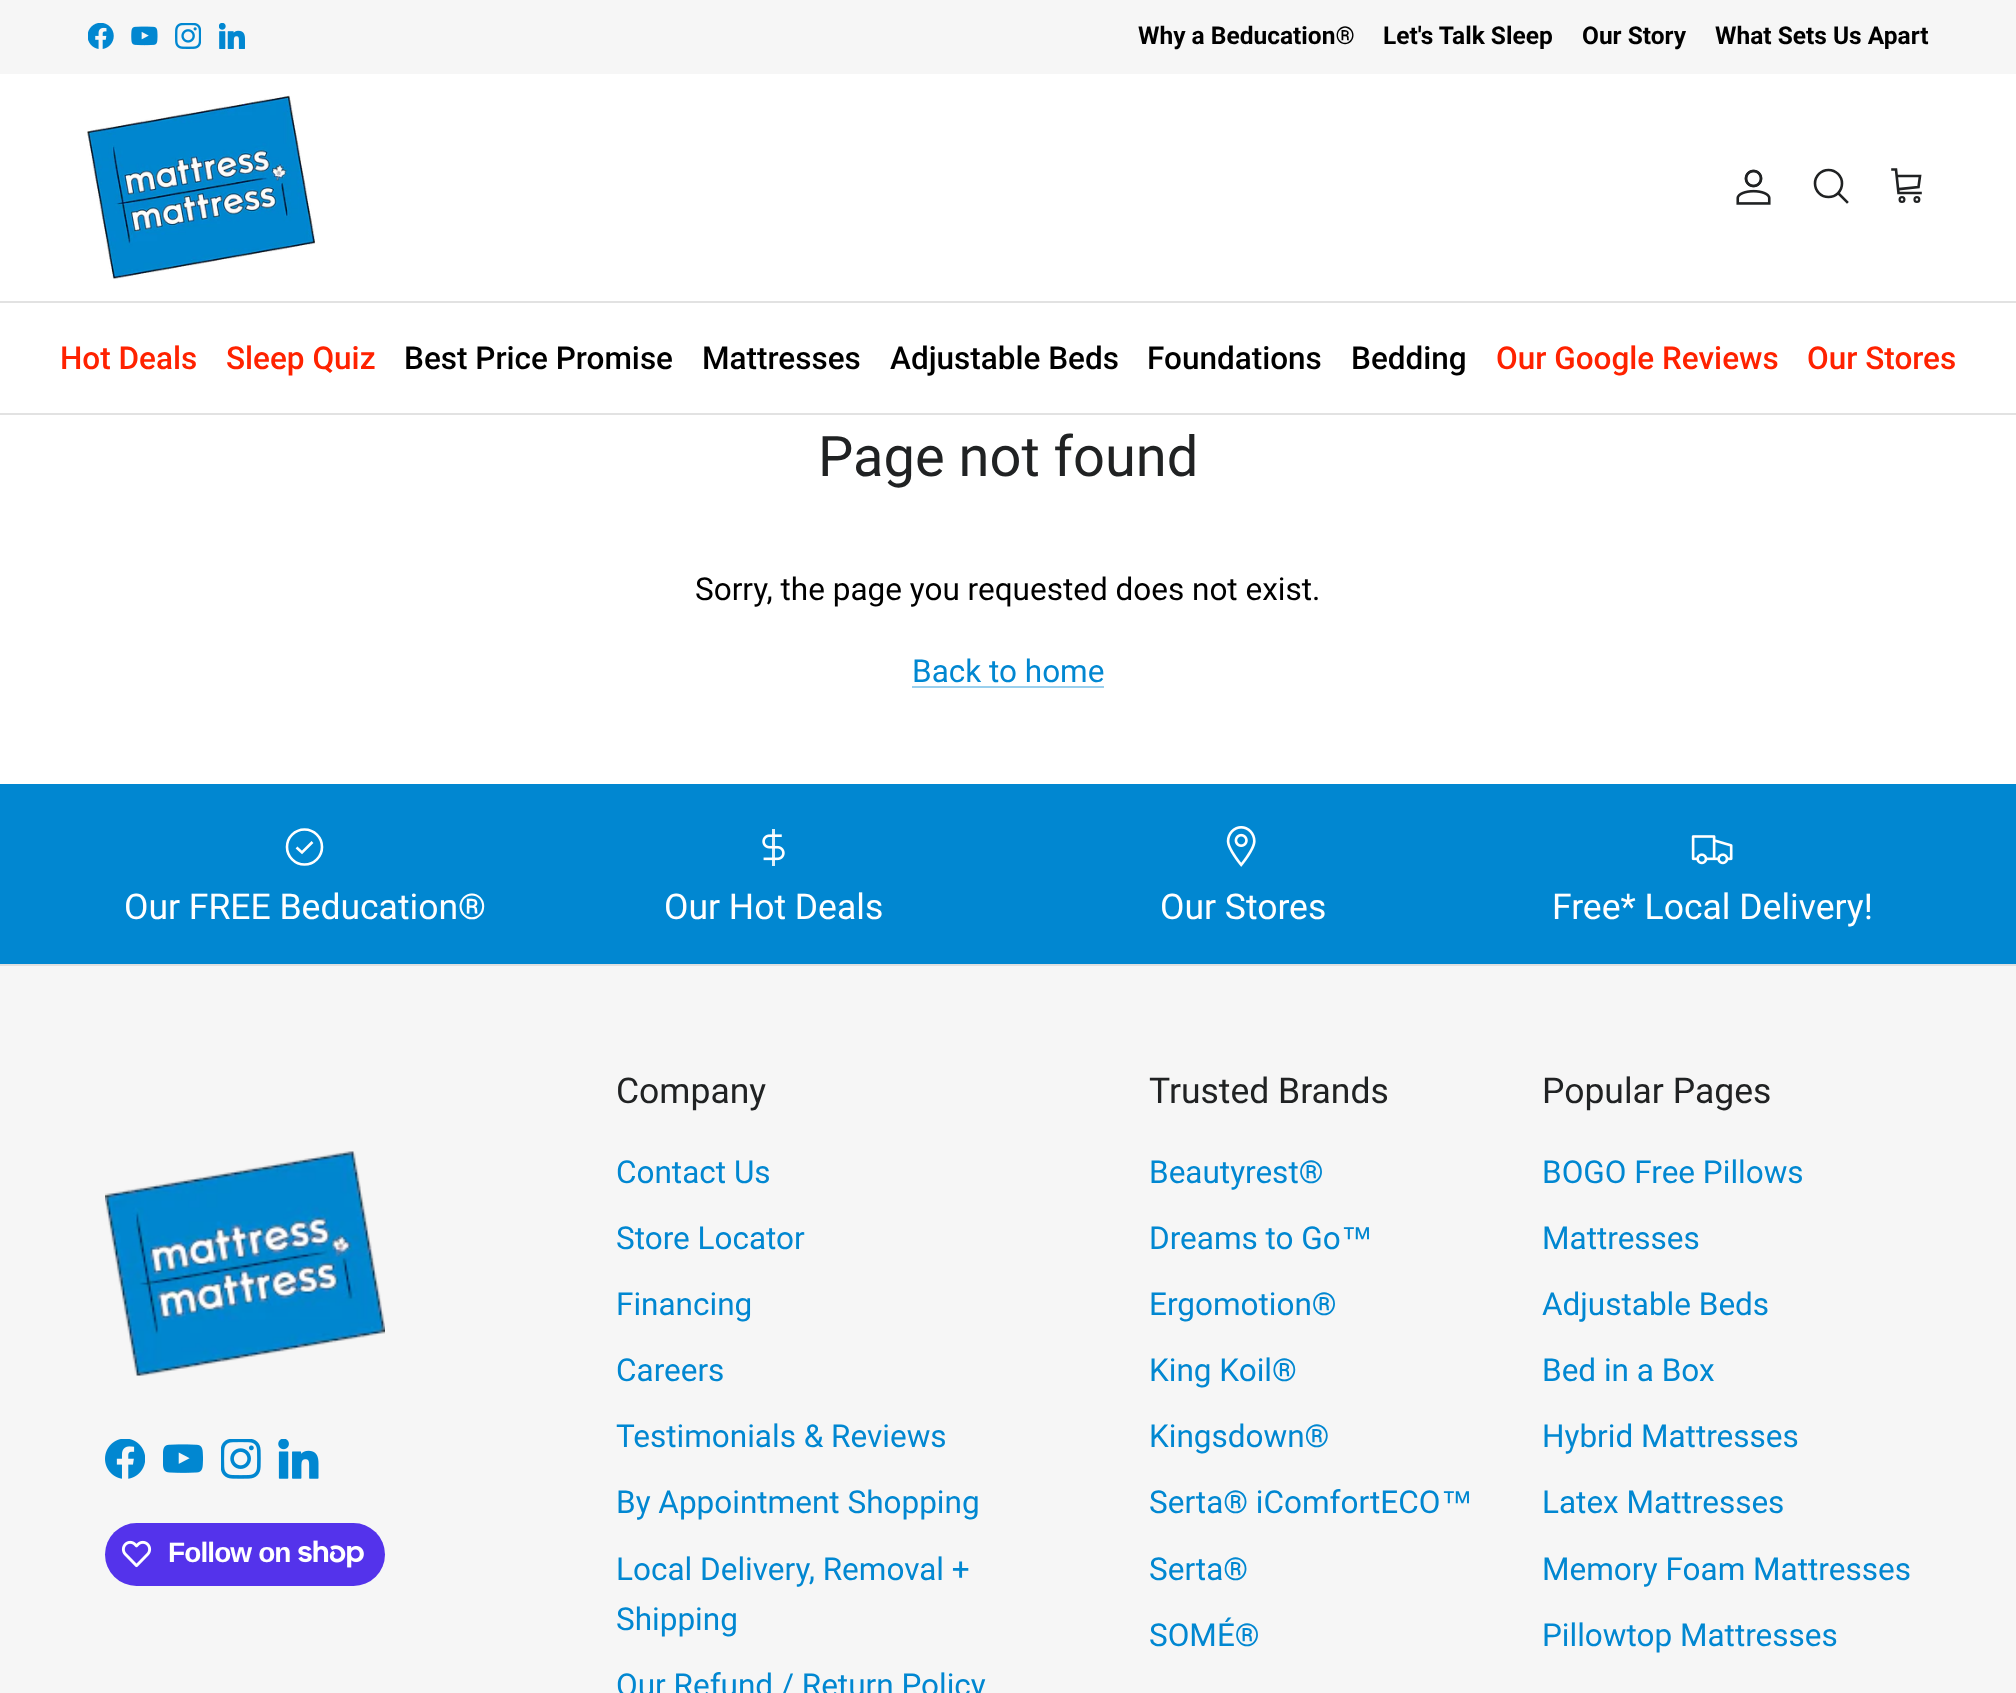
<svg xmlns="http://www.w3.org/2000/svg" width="2016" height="1693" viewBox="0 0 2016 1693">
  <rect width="100%" height="100%" fill="#fff"/>
  <path d="M0 0h2016v74H0z" fill="#f6f6f6"/>
  <image x="88" y="23" width="26" height="26" href="img/1.png"/>
  <image x="131" y="26" width="27" height="20" href="img/2.png"/>
  <image x="175" y="23" width="26" height="26" href="img/3.png"/>
  <image x="219" y="23" width="26" height="26" href="img/4.png"/>
  <path d="M0 301h2016v2H0z" fill="#e2e2e2"/>
  <image x="87" y="95" width="228" height="184" href="img/5.png"/>
  <image x="1736" y="169" width="35" height="36" href="img/6.png"/>
  <circle cx="1828.5" cy="183.5" r="13.5" fill="none" stroke="#202223" stroke-width="2.6"/>
  <path d="M1839 194L1847 202" fill="none" stroke="#202223" stroke-width="2.6" stroke-linecap="square"/>
  <path d="M1892.5 169.5H1896L1898.5 193H1920.5M1897.5 176H1920L1918.5 187L1900 189" fill="none" stroke="#202223" stroke-width="2.6" stroke-linecap="square"/>
  <circle cx="1902" cy="199.5" r="2.4" fill="none" stroke="#202223" stroke-width="2.2"/>
  <circle cx="1916.9" cy="199.5" r="2.4" fill="none" stroke="#202223" stroke-width="2.2"/>
  <path d="M0 413h2016v2H0z" fill="#e2e2e2"/>
  <path d="M912 686h192v2H912z" fill="#99cfed"/>
  <path d="M0 784h2016v180H0z" fill="#0187d1"/>
  <circle cx="304.5" cy="847" r="17.5" fill="none" stroke="#fff" stroke-width="2.6"/>
  <path d="M312.5 842L302 852.5L296.5 847.5" fill="none" stroke="#fff" stroke-width="2.6"/>
  <image x="762" y="829" width="23" height="37" href="img/7.png"/>
  <image x="1226" y="826" width="30" height="41" href="img/8.png"/>
  <image x="1691" y="835" width="42" height="30" href="img/9.png"/>
  <path d="M0 966h2016v727H0z" fill="#f6f6f6"/>
  <path d="M0 964h2016v2H0z" fill="#e0e0e0"/>
  <image x="105" y="1151" width="280" height="225" href="img/10.png"/>
  <image x="105" y="1439" width="40" height="40" href="img/11.png"/>
  <image x="163" y="1444" width="40" height="29" href="img/12.png"/>
  <image x="221" y="1439" width="40" height="40" href="img/13.png"/>
  <image x="278" y="1439" width="41" height="40" href="img/14.png"/>
  <rect x="105" y="1523" width="280" height="63" rx="31.5" fill="#5433eb"/>
  <image x="121" y="1540" width="31" height="28" href="img/15.png"/>
  <image x="298" y="1540" width="66" height="28" href="img/16.png"/>
  <g font-family="Roboto" font-size="24.5" font-weight="bold" fill="#000">
    <text x="1138" y="44">Why a Beducation®</text>
    <text x="1383" y="44">Let's Talk Sleep</text>
    <text x="1582" y="44">Our Story</text>
    <text x="1715" y="44">What Sets Us Apart</text>
  </g>
  <g font-family="Roboto" font-size="31.5" font-weight="500" fill="#f20">
    <text x="60" y="369">Hot Deals</text>
    <text x="226" y="369">Sleep Quiz</text>
  </g>
  <g font-family="Roboto" font-size="31.5" font-weight="500" fill="#000">
    <text x="404" y="369">Best Price Promise</text>
    <text x="702" y="369">Mattresses</text>
    <text x="890" y="369">Adjustable Beds</text>
    <text x="1147" y="369">Foundations</text>
    <text x="1351" y="369">Bedding</text>
  </g>
  <g font-family="Roboto" font-size="31.5" font-weight="500" fill="#f20">
    <text x="1496" y="369">Our Google Reviews</text>
    <text x="1807" y="369">Our Stores</text>
  </g>
  <text x="818" y="476" font-family="Roboto" font-size="56" fill="#202223">Page not found</text>
  <text x="695" y="600" font-family="Roboto" font-size="31.5" fill="#000">Sorry, the page you requested does not exist.</text>
  <text x="912" y="682" font-family="Roboto" font-size="31.5" fill="#0187d1">Back to home</text>
  <g font-family="Roboto" font-size="35.5" fill="#fff">
    <text x="124" y="919">Our FREE Beducation®</text>
    <text x="664" y="919">Our Hot Deals</text>
    <text x="1160" y="919">Our Stores</text>
    <text x="1552" y="919">Free* Local Delivery!</text>
  </g>
  <text x="168" y="1562" font-family="Liberation Sans" font-size="28" font-weight="bold" letter-spacing="-0.9" fill="#fff">Follow on</text>
  <text x="616" y="1103" font-family="Roboto" font-size="35.5" fill="#202223">Company</text>
  <g font-family="Roboto" font-size="31.5" fill="#0187d1">
    <text x="616" y="1183">Contact Us</text>
    <text x="616" y="1249">Store Locator</text>
    <text x="616" y="1315">Financing</text>
    <text x="616" y="1381">Careers</text>
    <text x="616" y="1447">Testimonials &amp; Reviews</text>
    <text x="616" y="1513">By Appointment Shopping</text>
    <text x="616" y="1580">Local Delivery, Removal +</text>
    <text x="616" y="1630">Shipping</text>
    <text x="616" y="1696">Our Refund / Return Policy</text>
  </g>
  <text x="1149" y="1103" font-family="Roboto" font-size="35.5" fill="#202223">Trusted Brands</text>
  <g font-family="Roboto" font-size="31.5" fill="#0187d1">
    <text x="1149" y="1183">Beautyrest®</text>
    <text x="1149" y="1249">Dreams to Go</text>
  </g>
  <text x="1341" y="1249" font-family="Liberation Sans" font-size="31.5" fill="#0187d1">™</text>
  <g font-family="Roboto" font-size="31.5" fill="#0187d1">
    <text x="1149" y="1315">Ergomotion®</text>
    <text x="1149" y="1381">King Koil®</text>
    <text x="1149" y="1447">Kingsdown®</text>
    <text x="1149" y="1513">Serta® iComfortECO</text>
  </g>
  <text x="1441" y="1513" font-family="Liberation Sans" font-size="31.5" fill="#0187d1">™</text>
  <g font-family="Roboto" font-size="31.5" fill="#0187d1">
    <text x="1149" y="1580">Serta®</text>
    <text x="1149" y="1646">SOMÉ®</text>
  </g>
  <text x="1542" y="1103" font-family="Roboto" font-size="35.5" fill="#202223">Popular Pages</text>
  <g font-family="Roboto" font-size="31.5" fill="#0187d1">
    <text x="1542" y="1183">BOGO Free Pillows</text>
    <text x="1542" y="1249">Mattresses</text>
    <text x="1542" y="1315">Adjustable Beds</text>
    <text x="1542" y="1381">Bed in a Box</text>
    <text x="1542" y="1447">Hybrid Mattresses</text>
    <text x="1542" y="1513">Latex Mattresses</text>
    <text x="1542" y="1580">Memory Foam Mattresses</text>
    <text x="1542" y="1646">Pillowtop Mattresses</text>
  </g>
</svg>
